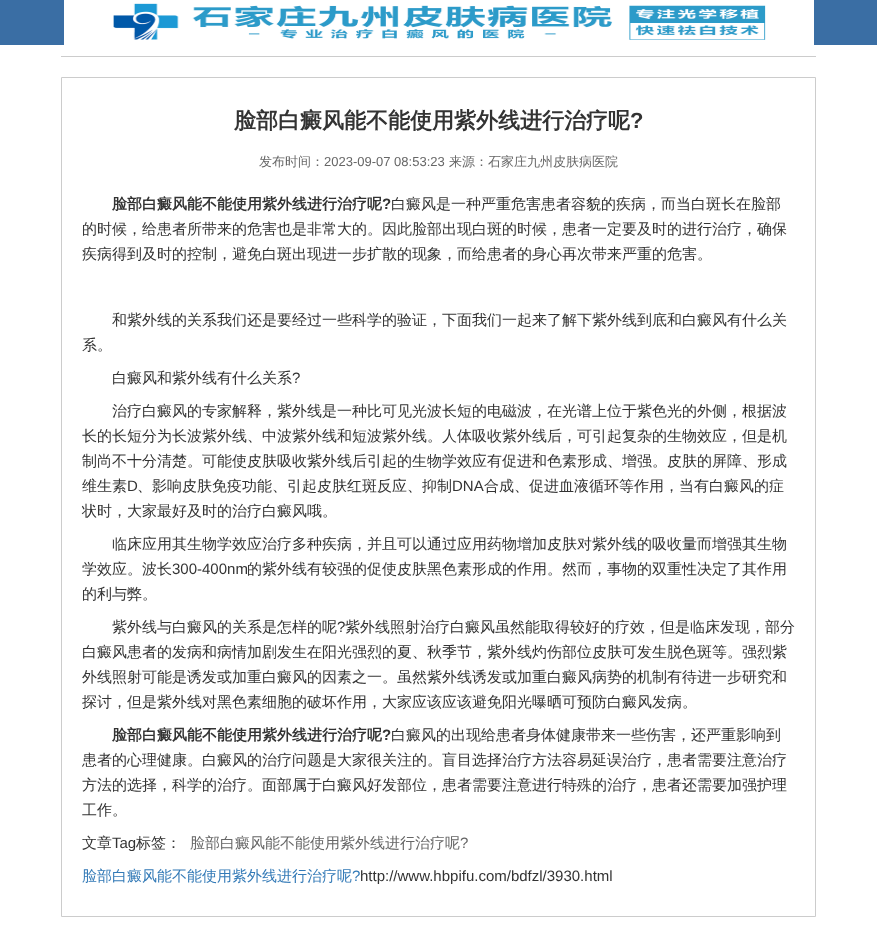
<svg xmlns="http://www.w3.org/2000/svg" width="877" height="930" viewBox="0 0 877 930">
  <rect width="100%" height="100%" fill="#fff"/>
  <path d="M0 0h877v45H0z" fill="#3a6ea4"/>
  <image x="64" y="0" width="750" height="45" href="img/1.png"/>
  <path d="M61 56h755v1H61z" fill="#ccc"/>
  <path d="M61.5 77.5h754v839H61.5z" fill="none" stroke="#ccc"/>
  <text x="234" y="128" font-family="WenQuanYi Zen Hei" font-size="22" font-weight="bold" fill="#333">脸部白癜风能不能使用紫外线进行治疗呢</text>
  <text x="630" y="128" font-family="Liberation Sans" font-size="22" font-weight="bold" fill="#333">?</text>
  <text x="259" y="166" font-family="WenQuanYi Zen Hei" font-size="13" font-weight="500" fill="#666">发布时间：</text>
  <text x="324" y="166" font-family="Liberation Sans" font-size="13" fill="#666">2023-09-07 08:53:23</text>
  <text x="449" y="166" font-family="WenQuanYi Zen Hei" font-size="13" font-weight="500" fill="#666">来源：石家庄九州皮肤病医院</text>
  <text x="112" y="209" font-family="WenQuanYi Zen Hei" font-size="15" font-weight="bold" fill="#333">脸部白癜风能不能使用紫外线进行治疗呢</text>
  <text x="382" y="209" font-family="Liberation Sans" font-size="15" font-weight="bold" fill="#333">?</text>
  <g font-family="WenQuanYi Zen Hei" font-size="15" font-weight="500" fill="#333">
    <text x="391" y="209">白癜风是一种严重危害患者容貌的疾病，而当白斑长在脸部</text>
    <text x="82" y="234">的时候，给患者所带来的危害也是非常大的。因此脸部出现白斑的时候，患者一定要及时的进行治疗，确保</text>
    <text x="82" y="259">疾病得到及时的控制，避免白斑出现进一步扩散的现象，而给患者的身心再次带来严重的危害。</text>
    <text x="112" y="325">和紫外线的关系我们还是要经过一些科学的验证，下面我们一起来了解下紫外线到底和白癜风有什么关</text>
    <text x="82" y="350">系。</text>
    <text x="112" y="383">白癜风和紫外线有什么关系</text>
  </g>
  <text x="292" y="383" font-family="Liberation Sans" font-size="15" fill="#333">?</text>
  <g font-family="WenQuanYi Zen Hei" font-size="15" font-weight="500" fill="#333">
    <text x="112" y="416">治疗白癜风的专家解释，紫外线是一种比可见光波长短的电磁波，在光谱上位于紫色光的外侧，根据波</text>
    <text x="82" y="441">长的长短分为长波紫外线、中波紫外线和短波紫外线。人体吸收紫外线后，可引起复杂的生物效应，但是机</text>
    <text x="82" y="466">制尚不十分清楚。可能使皮肤吸收紫外线后引起的生物学效应有促进和色素形成、增强。皮肤的屏障、形成</text>
    <text x="82" y="491">维生素</text>
  </g>
  <text x="127" y="491" font-family="Liberation Sans" font-size="15" fill="#333">D</text>
  <text x="137" y="491" font-family="WenQuanYi Zen Hei" font-size="15" font-weight="500" fill="#333">、影响皮肤免疫功能、引起皮肤红斑反应、抑制</text>
  <text x="452" y="491" font-family="Liberation Sans" font-size="15" fill="#333">DNA</text>
  <g font-family="WenQuanYi Zen Hei" font-size="15" font-weight="500" fill="#333">
    <text x="484" y="491">合成、促进血液循环等作用，当有白癜风的症</text>
    <text x="82" y="516">状时，大家最好及时的治疗白癜风哦。</text>
    <text x="112" y="549">临床应用其生物学效应治疗多种疾病，并且可以通过应用药物增加皮肤对紫外线的吸收量而增强其生物</text>
    <text x="82" y="574">学效应。波长</text>
  </g>
  <text x="172" y="574" font-family="Liberation Sans" font-size="15" fill="#333">300-400nm</text>
  <g font-family="WenQuanYi Zen Hei" font-size="15" font-weight="500" fill="#333">
    <text x="247" y="574">的紫外线有较强的促使皮肤黑色素形成的作用。然而，事物的双重性决定了其作用</text>
    <text x="82" y="599">的利与弊。</text>
    <text x="112" y="632">紫外线与白癜风的关系是怎样的呢</text>
  </g>
  <text x="337" y="632" font-family="Liberation Sans" font-size="15" fill="#333">?</text>
  <g font-family="WenQuanYi Zen Hei" font-size="15" font-weight="500" fill="#333">
    <text x="345" y="632">紫外线照射治疗白癜风虽然能取得较好的疗效，但是临床发现，部分</text>
    <text x="82" y="657">白癜风患者的发病和病情加剧发生在阳光强烈的夏、秋季节，紫外线灼伤部位皮肤可发生脱色斑等。强烈紫</text>
    <text x="82" y="682">外线照射可能是诱发或加重白癜风的因素之一。虽然紫外线诱发或加重白癜风病势的机制有待进一步研究和</text>
    <text x="82" y="707">探讨，但是紫外线对黑色素细胞的破坏作用，大家应该应该避免阳光曝晒可预防白癜风发病。</text>
  </g>
  <text x="112" y="740" font-family="WenQuanYi Zen Hei" font-size="15" font-weight="bold" fill="#333">脸部白癜风能不能使用紫外线进行治疗呢</text>
  <text x="382" y="740" font-family="Liberation Sans" font-size="15" font-weight="bold" fill="#333">?</text>
  <g font-family="WenQuanYi Zen Hei" font-size="15" font-weight="500" fill="#333">
    <text x="391" y="740">白癜风的出现给患者身体健康带来一些伤害，还严重影响到</text>
    <text x="82" y="765">患者的心理健康。白癜风的治疗问题是大家很关注的。盲目选择治疗方法容易延误治疗，患者需要注意治疗</text>
    <text x="82" y="790">方法的选择，科学的治疗。面部属于白癜风好发部位，患者需要注意进行特殊的治疗，患者还需要加强护理</text>
    <text x="82" y="815">工作。</text>
    <text x="82" y="848">文章</text>
  </g>
  <text x="112" y="848" font-family="Liberation Sans" font-size="15" fill="#333">Tag</text>
  <text x="136" y="848" font-family="WenQuanYi Zen Hei" font-size="15" font-weight="500" fill="#333">标签：</text>
  <text x="190" y="848" font-family="WenQuanYi Zen Hei" font-size="15" font-weight="500" fill="#666">脸部白癜风能不能使用紫外线进行治疗呢</text>
  <text x="460" y="848" font-family="Liberation Sans" font-size="15" fill="#666">?</text>
  <text x="82" y="881" font-family="WenQuanYi Zen Hei" font-size="15" font-weight="500" fill="#337ab7">脸部白癜风能不能使用紫外线进行治疗呢</text>
  <text x="352" y="881" font-family="Liberation Sans" font-size="15" fill="#337ab7">?</text>
  <text x="360" y="881" font-family="Liberation Sans" font-size="15" fill="#333">http://www.hbpifu.com/bdfzl/3930.html</text>
</svg>
